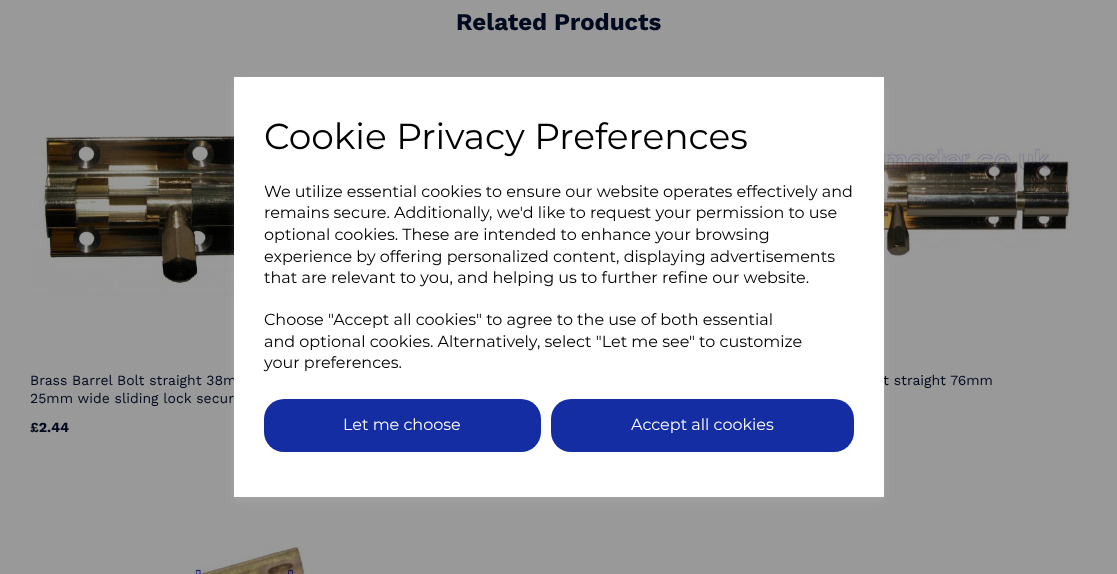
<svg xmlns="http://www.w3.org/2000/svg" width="1117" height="574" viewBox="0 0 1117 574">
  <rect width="100%" height="100%" fill="#999"/>
  <image x="32" y="135" width="202" height="162" href="img/1.png"/>
  <image x="884" y="146" width="188" height="112" href="img/2.png"/>
  <image x="195" y="546" width="110" height="28" href="img/3.png"/>
  <path d="M234 81h650v420H234z" fill="#ffffff1a" filter="blur(4px)"/>
  <text x="456" y="30" font-family="Work Sans" font-size="24" font-weight="bold" fill="#010a1f">Related Products</text>
  <g font-family="Work Sans" font-size="14" fill="#010a1f">
    <text x="30" y="385">Brass Barrel Bolt straight 38m</text>
    <text x="30" y="403">25mm wide sliding lock secur</text>
  </g>
  <text x="30" y="432" font-family="Work Sans" font-size="14" font-weight="bold" fill="#010a1f">£2.44</text>
  <text x="883" y="385" font-family="Work Sans" font-size="14" fill="#010a1f">t straight 76mm</text>
  <path d="M234 77h650v420H234z" fill="#fff"/>
  <text x="264" y="149" font-family="Montserrat" font-size="36" fill="#000">Cookie Privacy Preferences</text>
  <g font-family="Montserrat" font-size="16" fill="#000">
    <text x="264" y="197">We utilize essential cookies to ensure our website operates effectively and</text>
    <text x="264" y="218">remains secure. Additionally, we'd like to request your permission to use</text>
    <text x="264" y="240">optional cookies. These are intended to enhance your browsing</text>
    <text x="264" y="262">experience by offering personalized content, displaying advertisements</text>
    <text x="264" y="283">that are relevant to you, and helping us to further refine our website.</text>
    <text x="264" y="325">Choose "Accept all cookies" to agree to the use of both essential</text>
    <text x="264" y="347">and optional cookies. Alternatively, select "Let me see" to customize</text>
    <text x="264" y="368">your preferences.</text>
  </g>
  <rect x="264" y="399" width="277" height="53" rx="20" fill="#142da3"/>
  <text x="343" y="430" font-family="Montserrat" font-size="16" fill="#fff">Let me choose</text>
  <rect x="551" y="399" width="303" height="53" rx="20" fill="#142da3"/>
  <text x="631" y="430" font-family="Montserrat" font-size="16" fill="#fff">Accept all cookies</text>
</svg>
